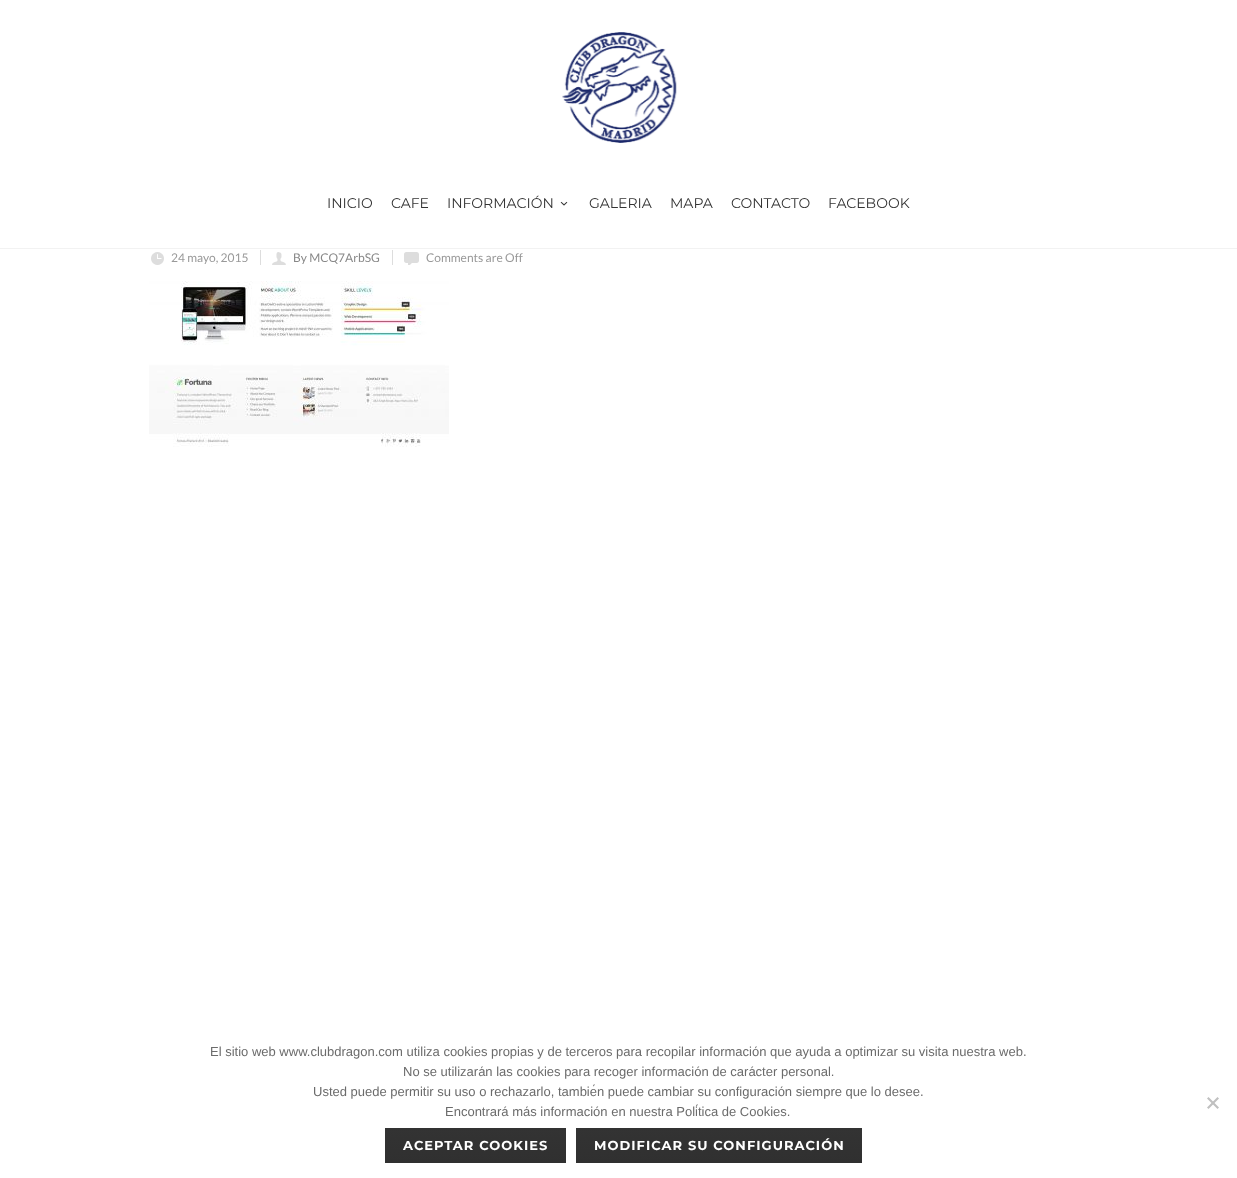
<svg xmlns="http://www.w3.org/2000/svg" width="1237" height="1178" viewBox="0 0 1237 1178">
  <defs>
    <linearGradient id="g1" gradientUnits="userSpaceOnUse" x1="476" y1="1128" x2="476" y2="1163"><stop offset="0" stop-color="#333"/><stop offset="1" stop-color="#303030"/></linearGradient>
    <linearGradient id="g2" gradientUnits="userSpaceOnUse" x1="719" y1="1128" x2="719" y2="1163"><stop offset="0" stop-color="#333"/><stop offset="1" stop-color="#303030"/></linearGradient>
  </defs>
  <rect width="100%" height="100%" fill="#fff"/>
  <path d="M-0.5 -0.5h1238v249H-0.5z" fill="none" stroke="#f2f2f2"/>
  <image x="562" y="32" width="115" height="111" href="img/1.png"/>
  <image x="560" y="201" width="8" height="5" href="img/2.png"/>
  <image x="151" y="252" width="13" height="13" href="img/3.png"/>
  <path d="M260 250h1v15H260z" fill="#ddd"/>
  <image x="272" y="252" width="14" height="13" href="img/4.png"/>
  <path d="M392 250h1v15H392z" fill="#ddd"/>
  <image x="404" y="252" width="15" height="13" href="img/5.png"/>
  <image x="149" y="281" width="300" height="166" href="img/6.png"/>
  <path d="M1217.5 1097L1219 1098.5L1208.5 1109L1207 1107.5Z" fill="#c0c0c0"/>
  <path d="M1207 1098.5L1208.5 1097L1219 1107.5L1217.5 1109Z" fill="#c0c0c0"/>
  <path d="M385 1128h181v35H385z" fill="url(#g1)"/>
  <path d="M576 1128h286v35H576z" fill="url(#g2)"/>
  <g font-family="Montserrat" font-size="14" fill="#333">
    <text x="327" y="208">INICIO</text>
    <text x="391" y="208">CAFE</text>
    <text x="447" y="208">INFORMACIÓN</text>
    <text x="589" y="208">GALERIA</text>
    <text x="670" y="208">MAPA</text>
    <text x="731" y="208">CONTACTO</text>
    <text x="828" y="208">FACEBOOK</text>
  </g>
  <text x="171" y="262" font-family="Lato" font-size="12" fill="#999">24 mayo, 2015</text>
  <text x="293" y="262" font-family="Lato" font-size="12" fill="#888">By MCQ7ArbSG</text>
  <text x="426" y="262" font-family="Lato" font-size="12" fill="#999">Comments are Off</text>
  <g font-family="Liberation Sans" font-size="13" fill="#6b6b6b">
    <text x="210" y="1056">El sitio web www.clubdragon.com utiliza cookies propias y de terceros para recopilar información que ayuda a optimizar su visita nuestra web.</text>
    <text x="403" y="1076">No se utilizarán las cookies para recoger información de carácter personal.</text>
    <text x="313" y="1096">Usted puede permitir su uso o rechazarlo, también puede cambiar su configuración siempre que lo desee.</text>
    <text x="445" y="1116">Encontrará más información en nuestra Política de Cookies.</text>
  </g>
  <g font-family="Montserrat" font-size="13" font-weight="bold" letter-spacing="1.05" fill="#fff">
    <text x="403" y="1150">ACEPTAR COOKIES</text>
    <text x="594" y="1150">MODIFICAR SU CONFIGURACIÓN</text>
  </g>
</svg>
